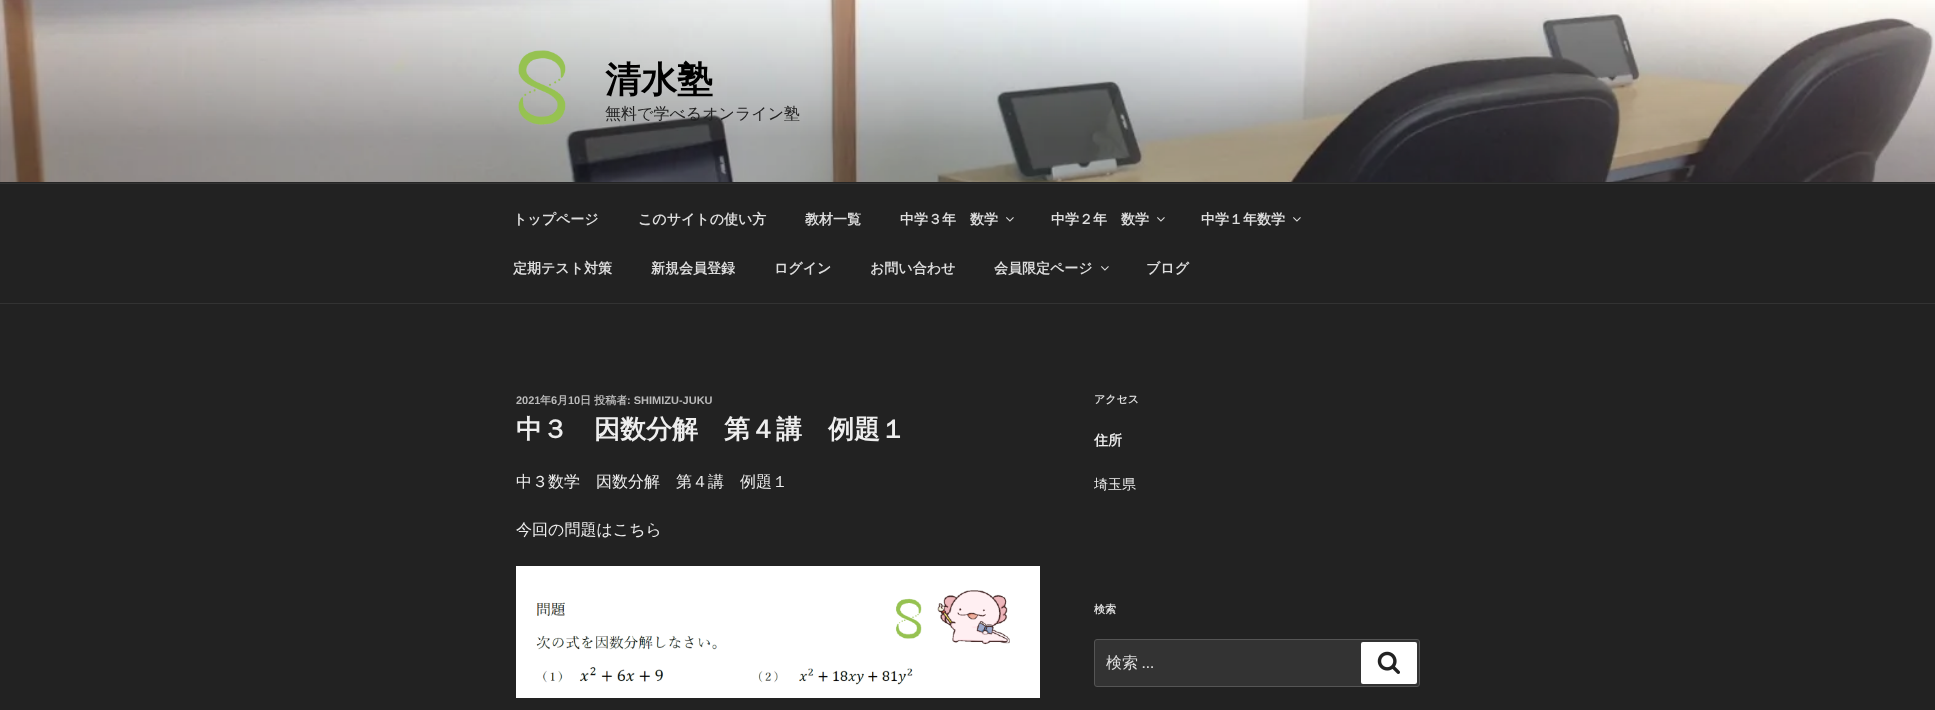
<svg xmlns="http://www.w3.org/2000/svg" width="1935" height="710">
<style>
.a{font:bold 36px WenQuanYi Zen Hei;fill:#000}
.b{font:500 16px WenQuanYi Zen Hei;fill:#222}
.c{font:bold 14px WenQuanYi Zen Hei;fill:#ddd}
.d{font:bold 11px Liberation Sans;fill:#bbb}
.e{font:bold 11px WenQuanYi Zen Hei;fill:#bbb}
.f{font:bold 26px WenQuanYi Zen Hei;fill:#eee}
.g{font:500 16px WenQuanYi Zen Hei;fill:#eee}
.h{font:bold 11px WenQuanYi Zen Hei;fill:#ddd}
.i{font:bold 14px WenQuanYi Zen Hei;fill:#eee}
.j{font:500 14px WenQuanYi Zen Hei;fill:#eee}
.k{font:500 16px WenQuanYi Zen Hei;fill:#ddd}
.l{font:16px Libre Franklin;fill:#ddd}
</style>
<rect width="100%" height="100%" fill="#222"/>
<path fill="#262626" d="M0 182h1935v1H0z"/>
<image href="1.png" x="0" y="0" width="1935" height="182"/>
<image href="2.png" x="518" y="50" width="48" height="75"/>
<path fill="#333" d="M0 183h1935v1H0z"/>
<path fill="#333" d="M0 303h1935v1H0z"/>
<image href="3.png" x="1006" y="217" width="8" height="5"/>
<image href="3.png" x="1157" y="217" width="8" height="5"/>
<image href="3.png" x="1293" y="217" width="8" height="5"/>
<image href="3.png" x="1101" y="266" width="8" height="5"/>
<image href="4.png" x="516" y="566" width="524" height="132"/>
<rect fill="#333" stroke="#555" x="1094.5" y="639.5" width="325" height="47" rx="2.5"/>
<rect fill="#fff" x="1361" y="642" width="56" height="42" rx="2"/>
<image href="5.png" x="1377" y="651" width="23" height="23"/>
<text class="a" x="605" y="92">清水塾</text>
<text class="b" x="605" y="119">無料で学べるオンライン塾</text>
<text class="c" x="513" y="224">トップページ</text>
<text class="c" x="638" y="224">このサイトの使い方</text>
<text class="c" x="805" y="224">教材一覧</text>
<text class="c" x="900" y="224">中学３年　数学</text>
<text class="c" x="1051" y="224">中学２年　数学</text>
<text class="c" x="1201" y="224">中学１年数学</text>
<text class="c" x="513" y="273">定期テスト対策</text>
<text class="c" x="651" y="273">新規会員登録</text>
<text class="c" x="774" y="273">ログイン</text>
<text class="c" x="870" y="273">お問い合わせ</text>
<text class="c" x="994" y="273">会員限定ページ</text>
<text class="c" x="1146" y="273">ブログ</text>
<text class="d" x="516" y="404">2021</text>
<text class="e" x="540" y="404">年</text>
<text class="d" x="551" y="404">6</text>
<text class="e" x="557" y="404">月</text>
<text class="d" x="568" y="404">10</text>
<text class="e" x="580" y="404">日 投稿者</text>
<text class="d" x="627" y="404">: SHIMIZU-JUKU</text>
<text class="f" x="516" y="438">中３　因数分解　第４講　例題１</text>
<text class="g" x="516" y="487">中３数学　因数分解　第４講　例題１</text>
<text class="g" x="516" y="535">今回の問題はこちら</text>
<text class="h" x="1094" y="403">アクセス</text>
<text class="i" x="1094" y="445">住所</text>
<text class="j" x="1094" y="489">埼玉県</text>
<text class="h" x="1094" y="613">検索</text>
<text class="k" x="1106" y="668">検索</text>
<text class="l" x="1142" y="668">…</text>
</svg>
